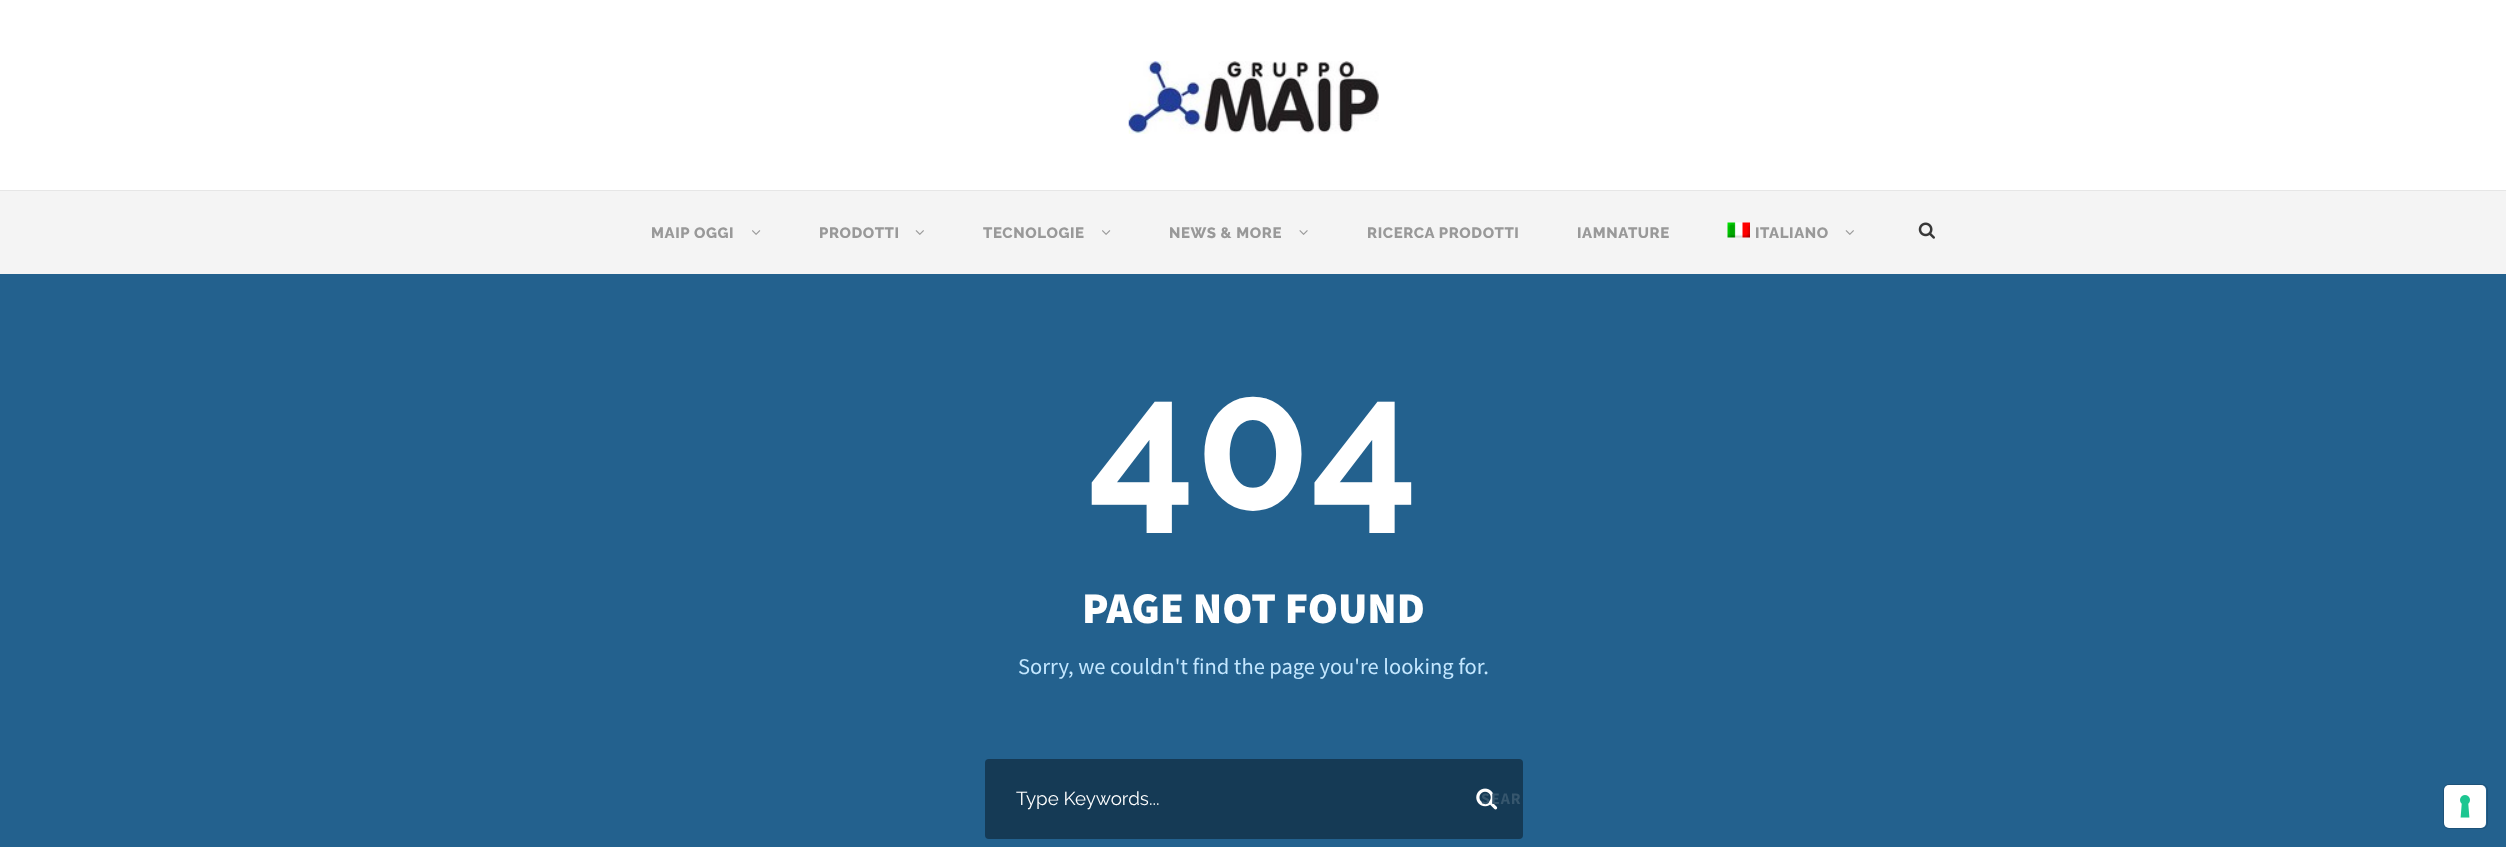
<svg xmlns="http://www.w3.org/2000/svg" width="2506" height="847">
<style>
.a{font:800 15px Raleway;letter-spacing:0.6px;fill:#999}
.b{font:bold 188px Raleway;fill:#fff}
.c{font:900 43.75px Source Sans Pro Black;fill:#fff}
.d{font:22.5px Source Sans Pro;fill:#c3e7ff}
.e{font:18.75px Raleway;fill:#fff}
.f{font:bold 16px Source Sans Pro;letter-spacing:1px;fill:#36566d}
</style>
<rect width="100%" height="100%" fill="#fff"/>
<image href="1.png" x="1128" y="61" width="251" height="73"/>
<path fill="#e6e6e6" d="M0 190h2506v1H0z"/>
<path fill="#f4f4f4" d="M0 191h2506v83H0z"/>
<image href="2.png" x="752" y="230" width="9" height="5"/>
<image href="3.png" x="915" y="230" width="9" height="5"/>
<image href="2.png" x="1102" y="230" width="9" height="5"/>
<image href="4.png" x="1299" y="230" width="9" height="5"/>
<image href="5.png" x="1727" y="222" width="23" height="16"/>
<image href="3.png" x="1845" y="230" width="9" height="5"/>
<image href="6.png" x="1918" y="222" width="17" height="17"/>
<path fill="#23618e" d="M0 274h2506v573H0z"/>
<rect fill="#153a55" x="985" y="759" width="538" height="80" rx="4"/>
<image href="7.png" x="1476" y="788" width="22" height="22"/>
<rect fill="none" stroke="#1e5279" x="2443.5" y="784.5" width="44" height="44" rx="5.5"/>
<rect fill="#fff" x="2444" y="785" width="42" height="43" rx="5"/>
<image href="8.png" x="2460" y="795" width="10" height="23"/>
<text class="a" x="651" y="238">MAIP OGGI</text>
<text class="a" x="819" y="238">PRODOTTI</text>
<text class="a" x="983" y="238">TECNOLOGIE</text>
<text class="a" x="1169" y="238">NEWS &amp; MORE</text>
<text class="a" x="1367" y="238">RICERCA PRODOTTI</text>
<text class="a" x="1577" y="238">IAMNATURE</text>
<text class="a" x="1755" y="238">ITALIANO</text>
<text class="b" x="1088" y="509">404</text>
<text class="c" x="1082" y="623">PAGE NOT FOUND</text>
<text class="d" x="1018" y="674">Sorry, we couldn't find the page you're looking for.</text>
<text class="e" x="1016" y="805">Type Keywords...</text>
<text class="f" x="1481" y="804">SEAR</text>
</svg>
